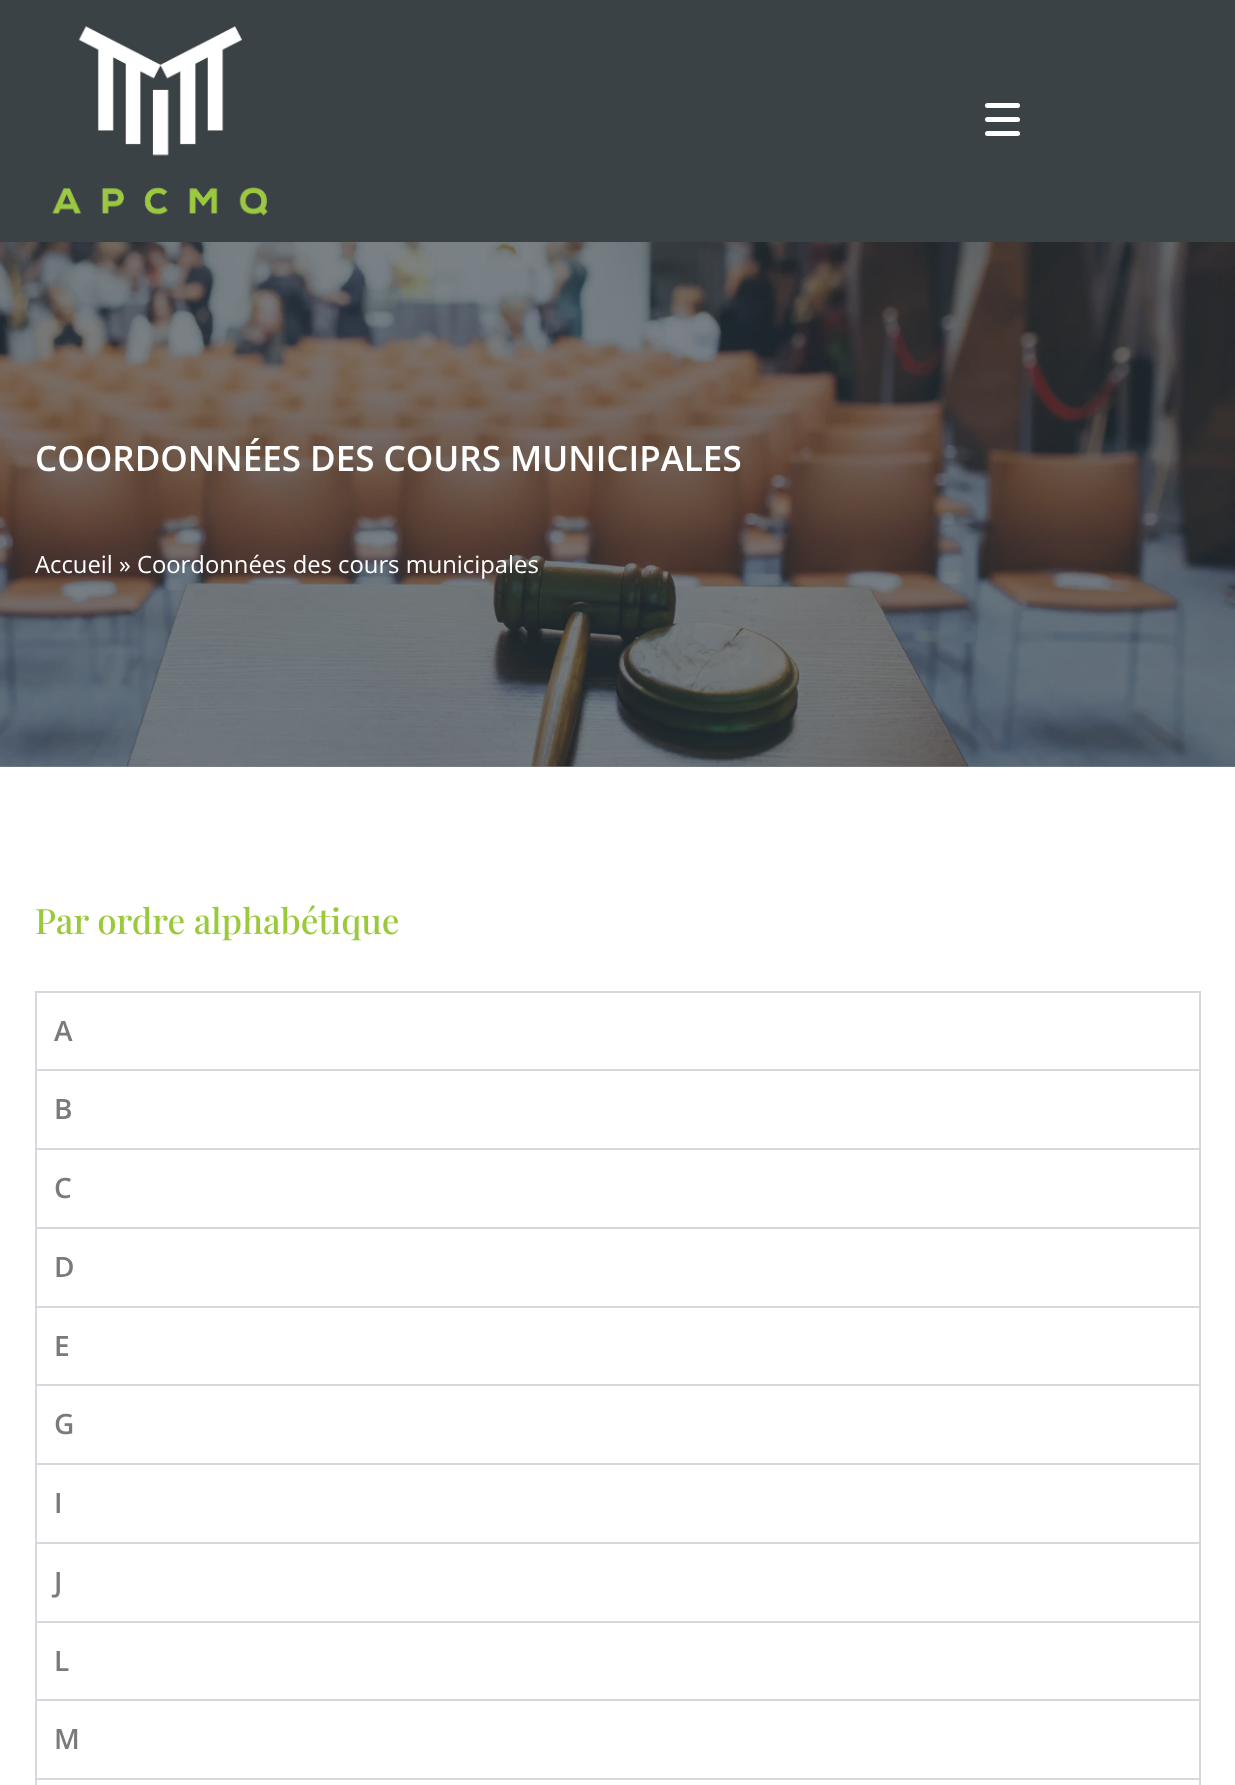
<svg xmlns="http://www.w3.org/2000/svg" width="1235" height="1785">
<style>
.a{font:600 35px Open Sans;fill:#fff}
.b{font:23.8px Open Sans;fill:#fff}
.c{font:500 35px Playfair Display;fill:#9aca3c}
.d{font:600 28px Open Sans;fill:#7a7a7a}
</style>
<rect width="100%" height="100%" fill="#fff"/>
<path fill="#80858a" d="M0 766h1235v1H0z"/>
<path fill="#3a4246" d="M0 0h1235v242H0z"/>
<image href="1.png" x="52" y="26" width="216" height="190"/>
<rect fill="#fff" x="985" y="117" width="35" height="5" rx="2.5"/>
<rect fill="#fff" x="985" y="103" width="35" height="5" rx="2.5"/>
<rect fill="#fff" x="985" y="131" width="35" height="5" rx="2.5"/>
<image href="2.png" x="0" y="242" width="1235" height="525"/>
<path fill="#d5d8dc" d="M35 991h1166v2H35z"/>
<path fill="#d5d8dc" d="M1199 991h2v78H1199z"/>
<path fill="#d5d8dc" d="M35 991h2v78H35z"/>
<path fill="#d5d8dc" d="M35 1069h1166v2H35z"/>
<path fill="#d5d8dc" d="M1199 1069h2v79H1199z"/>
<path fill="#d5d8dc" d="M35 1069h2v79H35z"/>
<path fill="#d5d8dc" d="M35 1148h1166v2H35z"/>
<path fill="#d5d8dc" d="M1199 1148h2v79H1199z"/>
<path fill="#d5d8dc" d="M35 1148h2v79H35z"/>
<path fill="#d5d8dc" d="M35 1227h1166v2H35z"/>
<path fill="#d5d8dc" d="M1199 1227h2v79H1199z"/>
<path fill="#d5d8dc" d="M35 1227h2v79H35z"/>
<path fill="#d5d8dc" d="M35 1306h1166v2H35z"/>
<path fill="#d5d8dc" d="M1199 1306h2v78H1199z"/>
<path fill="#d5d8dc" d="M35 1306h2v78H35z"/>
<path fill="#d5d8dc" d="M35 1384h1166v2H35z"/>
<path fill="#d5d8dc" d="M1199 1384h2v79H1199z"/>
<path fill="#d5d8dc" d="M35 1384h2v79H35z"/>
<path fill="#d5d8dc" d="M35 1463h1166v2H35z"/>
<path fill="#d5d8dc" d="M1199 1463h2v79H1199z"/>
<path fill="#d5d8dc" d="M35 1463h2v79H35z"/>
<path fill="#d5d8dc" d="M35 1542h1166v2H35z"/>
<path fill="#d5d8dc" d="M1199 1542h2v79H1199z"/>
<path fill="#d5d8dc" d="M35 1542h2v79H35z"/>
<path fill="#d5d8dc" d="M35 1621h1166v2H35z"/>
<path fill="#d5d8dc" d="M1199 1621h2v78H1199z"/>
<path fill="#d5d8dc" d="M35 1621h2v78H35z"/>
<path fill="#d5d8dc" d="M35 1699h1166v2H35z"/>
<path fill="#d5d8dc" d="M1199 1699h2v79H1199z"/>
<path fill="#d5d8dc" d="M35 1699h2v79H35z"/>
<path fill="#d5d8dc" d="M35 1778h1166v2H35z"/>
<path fill="#d5d8dc" d="M1199 1778h2v7H1199z"/>
<path fill="#d5d8dc" d="M35 1778h2v7H35z"/>
<text class="a" x="35" y="471">COORDONNÉES DES COURS MUNICIPALES</text>
<text class="b" x="35" y="573">Accueil » Coordonnées des cours municipales</text>
<text class="c" x="35" y="934">Par ordre alphabétique</text>
<text class="d" x="54" y="1041">A</text>
<text class="d" x="54" y="1119">B</text>
<text class="d" x="54" y="1198">C</text>
<text class="d" x="54" y="1277">D</text>
<text class="d" x="54" y="1356">E</text>
<text class="d" x="54" y="1434">G</text>
<text class="d" x="54" y="1513">I</text>
<text class="d" x="54" y="1592">J</text>
<text class="d" x="54" y="1671">L</text>
<text class="d" x="54" y="1749">M</text>
</svg>
